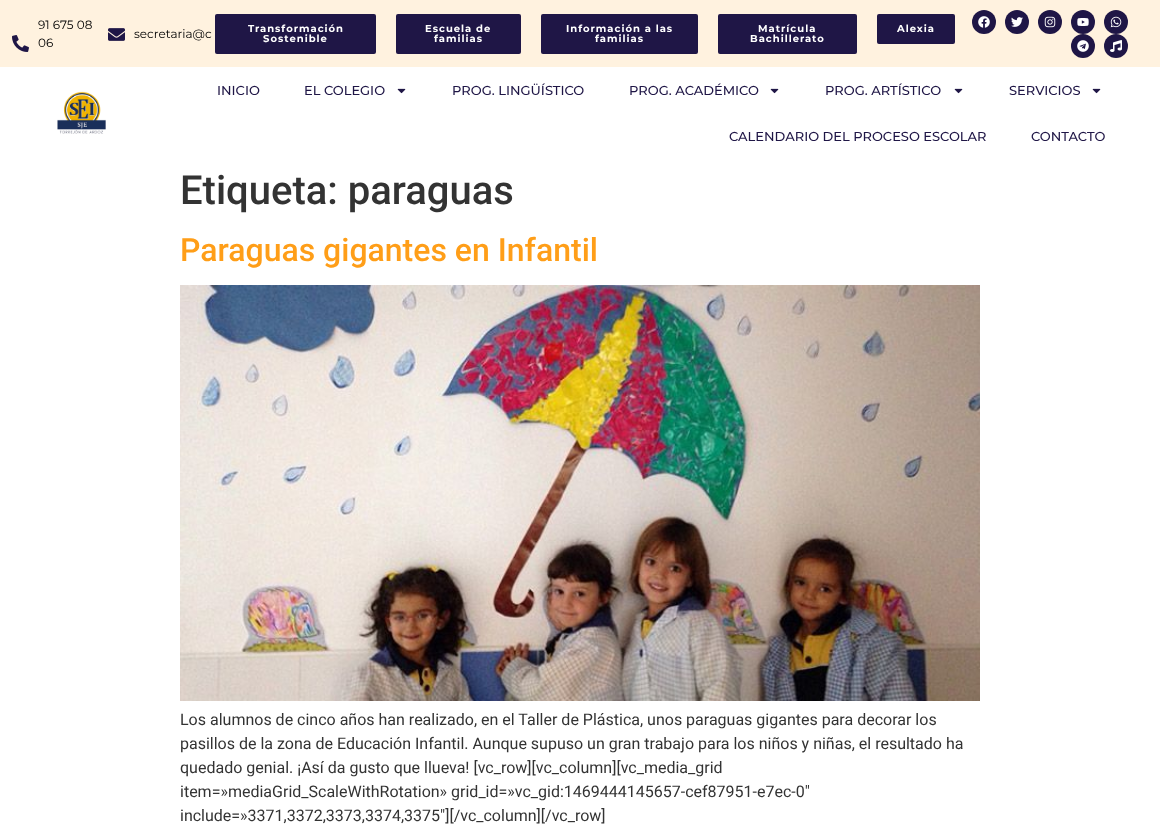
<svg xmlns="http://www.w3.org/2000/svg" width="1160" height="830">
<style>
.a{font:12px Montserrat;fill:#000}
.b{font:bold 10px Montserrat;letter-spacing:1px;fill:#fff}
.c{font:500 13px Montserrat;fill:#1f1646}
.d{font:500 40px Roboto;fill:#333}
.e{font:500 32px Roboto;fill:#ff9e18}
.f{font:16px Roboto;fill:#333}
</style>
<rect width="100%" height="100%" fill="#fff"/>
<path fill="#fff2df" d="M0 0h1160v67H0z"/>
<image href="1.png" x="12" y="35" width="17" height="17"/>
<image href="2.png" x="108" y="28" width="17" height="13"/>
<rect fill="#1f1646" x="215" y="14" width="161" height="40" rx="2"/>
<rect fill="#1f1646" x="396" y="14" width="125" height="40" rx="2"/>
<rect fill="#1f1646" x="541" y="14" width="157" height="40" rx="2"/>
<rect fill="#1f1646" x="718" y="14" width="139" height="40" rx="2"/>
<rect fill="#1f1646" x="877" y="14" width="78" height="30" rx="2"/>
<circle fill="#1f1646" cx="984" cy="22" r="12"/>
<image href="3.png" x="978" y="16" width="12" height="12"/>
<circle fill="#1f1646" cx="1017" cy="22" r="12"/>
<image href="4.png" x="1011" y="17" width="12" height="10"/>
<circle fill="#1f1646" cx="1050" cy="22" r="12"/>
<image href="5.png" x="1044" y="16" width="12" height="12"/>
<circle fill="#1f1646" cx="1083" cy="22" r="12"/>
<image href="6.png" x="1077" y="18" width="12" height="8"/>
<circle fill="#1f1646" cx="1116" cy="22" r="12"/>
<image href="7.png" x="1110" y="16" width="12" height="12"/>
<circle fill="#1f1646" cx="1083" cy="46" r="12"/>
<image href="8.png" x="1077" y="40" width="12" height="12"/>
<circle fill="#1f1646" cx="1116" cy="46" r="12"/>
<image href="9.png" x="1110" y="40" width="12" height="12"/>
<image href="10.png" x="57" y="91" width="49" height="43"/>
<image href="11.png" x="397" y="88" width="9" height="6"/>
<image href="11.png" x="770" y="88" width="9" height="6"/>
<image href="11.png" x="954" y="88" width="9" height="6"/>
<image href="11.png" x="1092" y="88" width="9" height="6"/>
<image href="12.png" x="180" y="285" width="800" height="416"/>
<text class="a" x="38" y="29">91 675 08</text>
<text class="a" x="38" y="47">06</text>
<text class="a" x="134" y="38">secretaria@c</text>
<text class="b" x="248" y="32">Transformación</text>
<text class="b" x="263" y="42">Sostenible</text>
<text class="b" x="425" y="32">Escuela de</text>
<text class="b" x="434" y="42">familias</text>
<text class="b" x="566" y="32">Información a las</text>
<text class="b" x="595" y="42">familias</text>
<text class="b" x="758" y="32">Matrícula</text>
<text class="b" x="750" y="42">Bachillerato</text>
<text class="b" x="897" y="32">Alexia</text>
<text class="c" x="217" y="95">INICIO</text>
<text class="c" x="304" y="95">EL COLEGIO</text>
<text class="c" x="452" y="95">PROG. LINGÜÍSTICO</text>
<text class="c" x="629" y="95">PROG. ACADÉMICO</text>
<text class="c" x="825" y="95">PROG. ARTÍSTICO</text>
<text class="c" x="1009" y="95">SERVICIOS</text>
<text class="c" x="729" y="141">CALENDARIO DEL PROCESO ESCOLAR</text>
<text class="c" x="1031" y="141">CONTACTO</text>
<text class="d" x="180" y="204">Etiqueta: paraguas</text>
<text class="e" x="180" y="261">Paraguas gigantes en Infantil</text>
<text class="f" x="180" y="725">Los alumnos de cinco años han realizado, en el Taller de Plástica, unos paraguas gigantes para decorar los</text>
<text class="f" x="180" y="749">pasillos de la zona de Educación Infantil. Aunque supuso un gran trabajo para los niños y niñas, el resultado ha</text>
<text class="f" x="180" y="773">quedado genial. ¡Así da gusto que llueva! [vc_row][vc_column][vc_media_grid</text>
<text class="f" x="180" y="797">item=»mediaGrid_ScaleWithRotation» grid_id=»vc_gid:1469444145657-cef87951-e7ec-0″</text>
<text class="f" x="180" y="821">include=»3371,3372,3373,3374,3375″][/vc_column][/vc_row]</text>
</svg>
